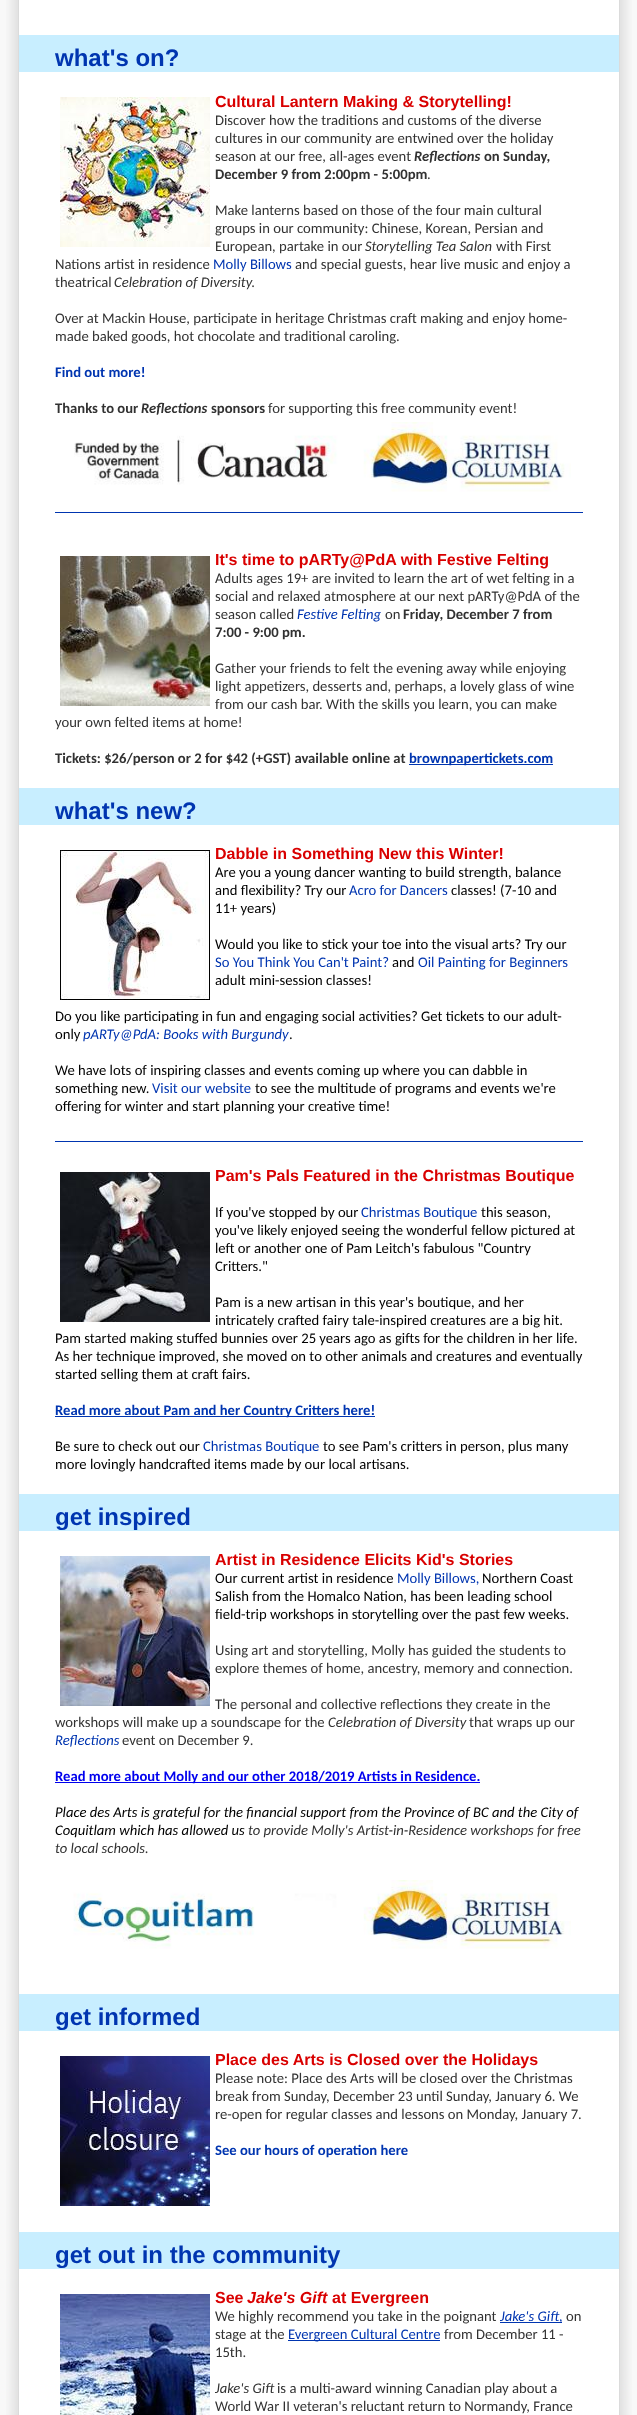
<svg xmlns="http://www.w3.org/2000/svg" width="637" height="2415">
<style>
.a{font:bold 24px Liberation Sans;fill:#0035b0}
.b{font:bold 16px Liberation Sans;fill:#d90000}
.c{font:14.65px Carlito;fill:#323232}
.d{font:italic bold 14.65px Carlito;fill:#323232}
.e{font:bold 14.65px Carlito;fill:#323232}
.f{font:italic 14.65px Carlito;fill:#323232}
.g{font:14.65px Carlito;fill:#0035b0}
.h{font:bold 14.65px Carlito;fill:#0035b0}
.i{font:italic 14.65px Carlito;fill:#0035b0}
.j{font:14.65px Carlito;fill:#000}
.k{font:bold 14.65px Carlito;fill:#00e}
.l{font:italic 14.65px Carlito;fill:#000}
.m{font:italic bold 16px Liberation Sans;fill:#d90000}
</style>
<rect width="100%" height="100%" fill="#f8f8f8"/>
<path fill="#f5f5f5" d="M6 0h1v2415H6z"/>
<path fill="#f4f4f4" d="M7 0h1v2415H7z"/>
<path fill="#f3f3f3" d="M8 0h1v2415H8z"/>
<path fill="#f1f1f1" d="M9 0h1v2415H9z"/>
<path fill="#efefef" d="M10 0h1v2415H10z"/>
<path fill="#ededed" d="M11 0h1v2415H11z"/>
<path fill="#ebebeb" d="M12 0h1v2415H12z"/>
<path fill="#eaeaea" d="M13 0h1v2415H13z"/>
<path fill="#e8e8e8" d="M14 0h1v2415H14z"/>
<path fill="#e6e6e6" d="M15 0h1v2415H15z"/>
<path fill="#e4e4e4" d="M16 0h1v2415H16z"/>
<path fill="#e3e3e3" d="M17 0h1v2415H17z"/>
<path fill="#dbdbdb" d="M18 0h602v2415H18z"/>
<path fill="#fff" d="M19 0h600v2415H19z"/>
<path fill="#c8eeff" d="M19 35h600v37H19z"/>
<image href="1.png" x="60" y="97" width="150" height="150"/>
<image href="2.png" x="74" y="422" width="497" height="70"/>
<path fill="#0035b0" d="M55 512h528v1H55z"/>
<image href="3.png" x="60" y="556" width="150" height="150"/>
<path fill="#0035b0" d="M409 764h144v1H409z"/>
<path fill="#c8eeff" d="M19 788h600v37H19z"/>
<image href="4.png" x="60" y="850" width="150" height="150"/>
<path fill="#0035b0" d="M55 1141h528v1H55z"/>
<image href="5.png" x="60" y="1172" width="150" height="150"/>
<path fill="#0035b0" d="M55 1416h320v1H55z"/>
<path fill="#c8eeff" d="M19 1494h600v37H19z"/>
<image href="6.png" x="60" y="1556" width="150" height="150"/>
<path fill="#00e" d="M55 1782h425v1H55z"/>
<image href="7.png" x="73" y="1880" width="498" height="69"/>
<path fill="#c8eeff" d="M19 1994h600v37H19z"/>
<image href="8.png" x="60" y="2056" width="150" height="150"/>
<path fill="#c8eeff" d="M19 2232h600v37H19z"/>
<image href="9.png" x="60" y="2294" width="150" height="121"/>
<path fill="#0035b0" d="M500 2322h62v1H500z"/>
<path fill="#0035b0" d="M288 2340h152v1H288z"/>
<path fill="#e3e3e3" d="M620 0h1v2415H620z"/>
<path fill="#e4e4e4" d="M621 0h1v2415H621z"/>
<path fill="#e6e6e6" d="M622 0h1v2415H622z"/>
<path fill="#e8e8e8" d="M623 0h1v2415H623z"/>
<path fill="#eaeaea" d="M624 0h1v2415H624z"/>
<path fill="#ebebeb" d="M625 0h1v2415H625z"/>
<path fill="#ededed" d="M626 0h1v2415H626z"/>
<path fill="#efefef" d="M627 0h1v2415H627z"/>
<path fill="#f1f1f1" d="M628 0h1v2415H628z"/>
<path fill="#f3f3f3" d="M629 0h1v2415H629z"/>
<path fill="#f4f4f4" d="M630 0h1v2415H630z"/>
<path fill="#f5f5f5" d="M631 0h1v2415H631z"/>
<text class="a" x="55" y="66">what's on?</text>
<text class="b" x="215" y="107">Cultural Lantern Making &amp; Storytelling!</text>
<text class="c" x="215" y="125">Discover how the traditions and customs of the diverse</text>
<text class="c" x="215" y="143">cultures in our community are entwined over the holiday</text>
<text class="c" x="215" y="161">season at our free, all-ages event</text>
<text class="d" x="414" y="161">Reflections</text>
<text class="e" x="484" y="161">on Sunday,</text>
<text class="e" x="215" y="179">December 9 from 2:00pm - 5:00pm</text>
<text class="c" x="427" y="179">.</text>
<text class="c" x="215" y="215">Make lanterns based on those of the four main cultural</text>
<text class="c" x="215" y="233">groups in our community: Chinese, Korean, Persian and</text>
<text class="c" x="215" y="251">European, partake in our</text>
<text class="f" x="365" y="251">Storytelling Tea Salon</text>
<text class="c" x="496" y="251">with First</text>
<text class="c" x="55" y="269">Nations artist in residence</text>
<text class="g" x="213" y="269">Molly Billows</text>
<text class="c" x="295" y="269">and special guests, hear live music and enjoy a</text>
<text class="c" x="55" y="287">theatrical</text>
<text class="f" x="114" y="287">Celebration of Diversity.</text>
<text class="c" x="55" y="323">Over at Mackin House, participate in heritage Christmas craft making and enjoy home-</text>
<text class="c" x="55" y="341">made baked goods, hot chocolate and traditional caroling.</text>
<text class="h" x="55" y="377">Find out more!</text>
<text class="e" x="55" y="413">Thanks to our</text>
<text class="d" x="141" y="413">Reflections</text>
<text class="e" x="211" y="413">sponsors</text>
<text class="c" x="268" y="413">for supporting this free community event!</text>
<text class="b" x="215" y="565">It's time to pARTy@PdA with Festive Felting</text>
<text class="c" x="215" y="583">Adults ages 19+ are invited to learn the art of wet felting in a</text>
<text class="c" x="215" y="601">social and relaxed atmosphere at our next pARTy@PdA of the</text>
<text class="c" x="215" y="619">season called</text>
<text class="i" x="297" y="619">Festive Felting</text>
<text class="c" x="385" y="619">on</text>
<text class="e" x="403" y="619">Friday, December 7 from</text>
<text class="e" x="215" y="637">7:00 - 9:00 pm.</text>
<text class="c" x="215" y="673">Gather your friends to felt the evening away while enjoying</text>
<text class="c" x="215" y="691">light appetizers, desserts and, perhaps, a lovely glass of wine</text>
<text class="c" x="215" y="709">from our cash bar. With the skills you learn, you can make</text>
<text class="c" x="55" y="727">your own felted items at home!</text>
<text class="e" x="55" y="763">Tickets: $26/person or 2 for $42 (+GST) available online at</text>
<text class="h" x="409" y="763">brownpapertickets.com</text>
<text class="a" x="55" y="819">what's new?</text>
<text class="b" x="215" y="859">Dabble in Something New this Winter!</text>
<text class="j" x="215" y="877">Are you a young dancer wanting to build strength, balance</text>
<text class="j" x="215" y="895">and flexibility? Try our</text>
<text class="g" x="349" y="895">Acro for Dancers</text>
<text class="j" x="451" y="895">classes! (7-10 and</text>
<text class="j" x="215" y="913">11+ years)</text>
<text class="j" x="215" y="949">Would you like to stick your toe into the visual arts? Try our</text>
<text class="g" x="215" y="967">So You Think You Can't Paint?</text>
<text class="j" x="392" y="967">and</text>
<text class="g" x="418" y="967">Oil Painting for Beginners</text>
<text class="j" x="215" y="985">adult mini-session classes!</text>
<text class="j" x="55" y="1021">Do you like participating in fun and engaging social activities? Get tickets to our adult-</text>
<text class="j" x="55" y="1039">only</text>
<text class="i" x="83" y="1039">pARTy@PdA: Books with Burgundy</text>
<text class="j" x="289" y="1039">.</text>
<text class="j" x="55" y="1075">We have lots of inspiring classes and events coming up where you can dabble in</text>
<text class="j" x="55" y="1093">something new.</text>
<text class="g" x="152" y="1093">Visit our website</text>
<text class="j" x="255" y="1093">to see the multitude of programs and events we're</text>
<text class="j" x="55" y="1111">offering for winter and start planning your creative time!</text>
<text class="b" x="215" y="1181">Pam's Pals Featured in the Christmas Boutique</text>
<text class="j" x="215" y="1217">If you've stopped by our</text>
<text class="g" x="361" y="1217">Christmas Boutique</text>
<text class="j" x="481" y="1217">this season,</text>
<text class="j" x="215" y="1235">you've likely enjoyed seeing the wonderful fellow pictured at</text>
<text class="j" x="215" y="1253">left or another one of Pam Leitch's fabulous "Country</text>
<text class="j" x="215" y="1271">Critters."</text>
<text class="j" x="215" y="1307">Pam is a new artisan in this year's boutique, and her</text>
<text class="j" x="215" y="1325">intricately crafted fairy tale-inspired creatures are a big hit.</text>
<text class="j" x="55" y="1343">Pam started making stuffed bunnies over 25 years ago as gifts for the children in her life.</text>
<text class="j" x="55" y="1361">As her technique improved, she moved on to other animals and creatures and eventually</text>
<text class="j" x="55" y="1379">started selling them at craft fairs.</text>
<text class="h" x="55" y="1415">Read more about Pam and her Country Critters here!</text>
<text class="j" x="55" y="1451">Be sure to check out our</text>
<text class="g" x="203" y="1451">Christmas Boutique</text>
<text class="j" x="323" y="1451">to see Pam's critters in person, plus many</text>
<text class="j" x="55" y="1469">more lovingly handcrafted items made by our local artisans.</text>
<text class="a" x="55" y="1525">get inspired</text>
<text class="b" x="215" y="1565">Artist in Residence Elicits Kid's Stories</text>
<text class="j" x="215" y="1583">Our current artist in residence</text>
<text class="g" x="397" y="1583">Molly Billows,</text>
<text class="j" x="482" y="1583">Northern Coast</text>
<text class="j" x="215" y="1601">Salish from the Homalco Nation, has been leading school</text>
<text class="j" x="215" y="1619">field-trip workshops in storytelling over the past few weeks.</text>
<text class="c" x="215" y="1655">Using art and storytelling, Molly has guided the students to</text>
<text class="c" x="215" y="1673">explore themes of home, ancestry, memory and connection.</text>
<text class="c" x="215" y="1709">The personal and collective reflections they create in the</text>
<text class="c" x="55" y="1727">workshops will make up a soundscape for the</text>
<text class="f" x="328" y="1727">Celebration of Diversity</text>
<text class="c" x="469" y="1727">that wraps up our</text>
<text class="i" x="55" y="1745">Reflections</text>
<text class="c" x="122" y="1745">event on December 9.</text>
<text class="k" x="55" y="1781">Read more about Molly and our other 2018/2019 Artists in Residence.</text>
<text class="l" x="55" y="1817">Place des Arts is grateful for the financial support from the Province of BC and the City of</text>
<text class="l" x="55" y="1835">Coquitlam which has allowed us</text>
<text class="f" x="248" y="1835">to provide Molly's Artist-in-Residence workshops for free</text>
<text class="f" x="55" y="1853">to local schools.</text>
<text class="a" x="55" y="2025">get informed</text>
<text class="b" x="215" y="2065">Place des Arts is Closed over the Holidays</text>
<text class="c" x="215" y="2083">Please note: Place des Arts will be closed over the Christmas</text>
<text class="c" x="215" y="2101">break from Sunday, December 23 until Sunday, January 6. We</text>
<text class="c" x="215" y="2119">re-open for regular classes and lessons on Monday, January 7.</text>
<text class="h" x="215" y="2155">See our hours of operation here</text>
<text class="a" x="55" y="2263">get out in the community</text>
<text class="b" x="215" y="2303">See</text>
<text class="m" x="247" y="2303">Jake's Gift</text>
<text class="b" x="332" y="2303">at Evergreen</text>
<text class="c" x="215" y="2321">We highly recommend you take in the poignant</text>
<text class="i" x="500" y="2321">Jake's Gift,</text>
<text class="c" x="566" y="2321">on</text>
<text class="c" x="215" y="2339">stage at the</text>
<text class="g" x="288" y="2339">Evergreen Cultural Centre</text>
<text class="c" x="444" y="2339">from December 11 -</text>
<text class="c" x="215" y="2357">15th.</text>
<text class="f" x="215" y="2393">Jake's Gift</text>
<text class="c" x="277" y="2393">is a multi-award winning Canadian play about a</text>
<text class="c" x="215" y="2411">World War II veteran's reluctant return to Normandy, France</text>
</svg>
